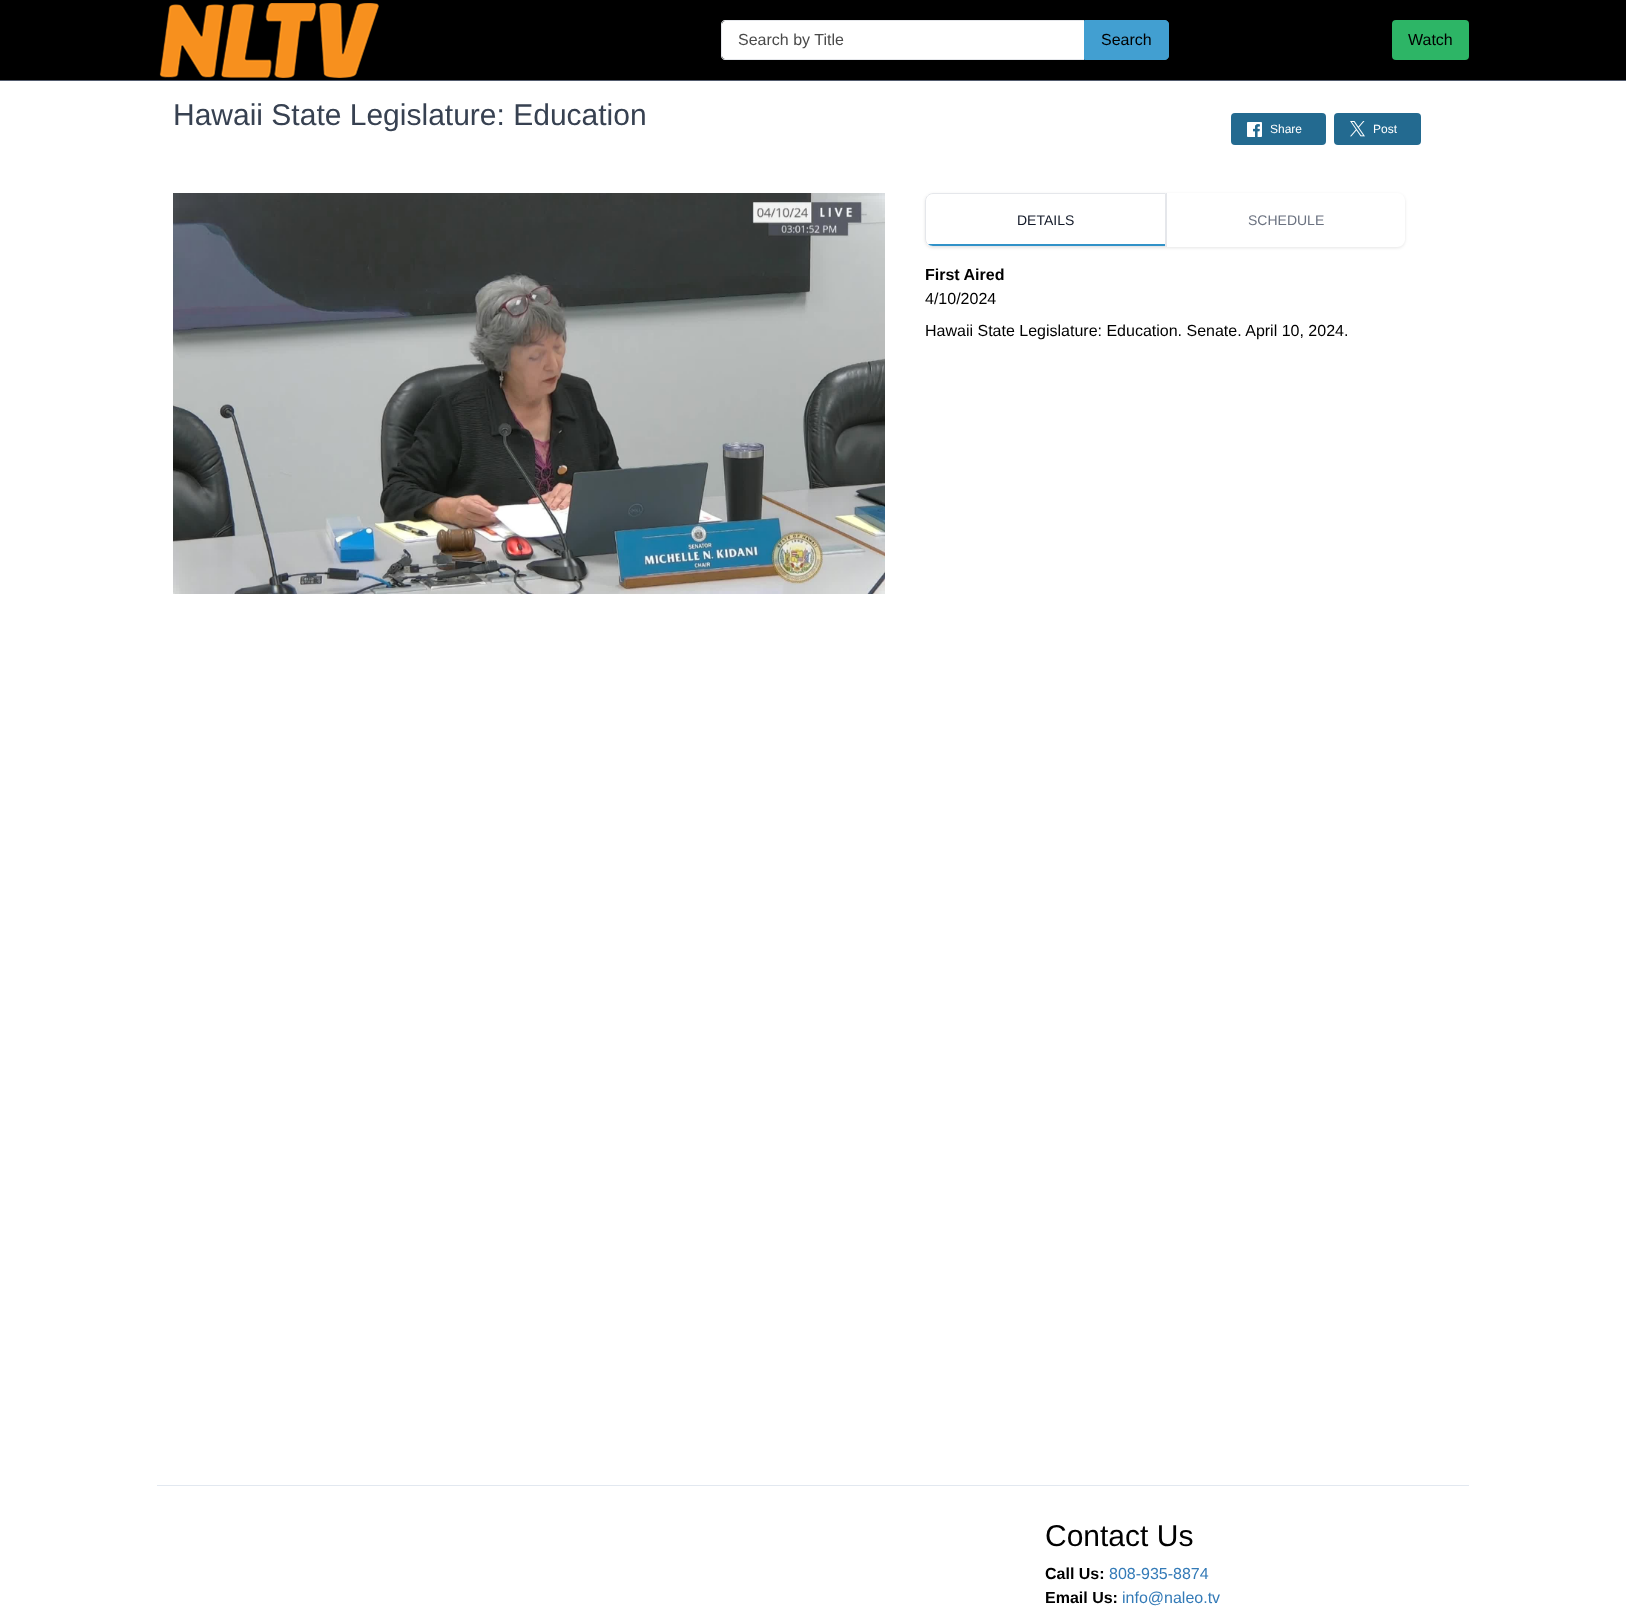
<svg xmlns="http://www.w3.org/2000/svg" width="1626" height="1606">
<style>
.a{font:16px Liberation Sans;fill:#4a4a4a}
.b{font:16px Liberation Sans;fill:#000}
.c{font:30px Liberation Sans;fill:#374151}
.d{font:12px Liberation Sans;fill:#fff}
.e{font:14px Liberation Sans;fill:#111827}
.f{font:14px Liberation Sans;fill:#6b7280}
.g{font:bold 16px Liberation Sans;fill:#000}
.h{font:30px Liberation Sans;fill:#000}
.i{font:16px Liberation Sans;fill:#337ab7}
</style>
<defs>
<clipPath id="clip1"><path d="M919 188h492v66h-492zm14 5h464c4.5 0 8 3.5 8 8v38c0 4.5-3.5 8-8 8h-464c-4.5 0-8-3.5-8-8v-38c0-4.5 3.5-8 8-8z" clip-rule="evenodd"/></clipPath>
<clipPath id="clip2"><path d="M933 194h232v52h-232c-4 0-7-3-7-7v-38c0-4 3-7 7-7z"/></clipPath>
</defs>
<rect width="100%" height="100%" fill="#fff"/>
<path fill="#000" d="M0 0h1626v80H0z"/>
<path fill="#545c6e" d="M0 80h1626v1H0z"/>
<image href="1.png" x="159" y="3" width="220" height="75"/>
<path fill="#fff" d="M725 21h359v38h-359c-1.5 0-3-1.5-3-3v-32c0-1.5 1.5-3 3-3z"/>
<path fill="#e5e7eb" fill-rule="evenodd" d="M725 20h359v40h-359c-2 0-4-2-4-4v-32c0-2 2-4 4-4zm0 1h359v38h-359c-2 0-3-1-3-3v-32c0-2 1-3 3-3z"/>
<path fill="#429fd1" stroke="#429fd1" d="M1084.5 20.5h80.5c2 0 3.5 1.5 3.5 3.5v32c0 2-1.5 3.5-3.5 3.5h-80.5z"/>
<rect fill="#2db566" x="1392" y="20" width="77" height="40" rx="4"/>
<rect fill="#236a90" x="1231" y="113" width="95" height="32" rx="4"/>
<image href="2.png" x="1247" y="122" width="15" height="15"/>
<rect fill="#236a90" x="1334" y="113" width="87" height="32" rx="4"/>
<image href="3.png" x="1350" y="121" width="15" height="16"/>
<image href="4.png" x="173" y="193" width="712" height="401"/>
<g clip-path="url(#clip1)">
<rect fill="#0000001a" filter="blur(1.5px)" x="925" y="194" width="480" height="54" rx="8"/>
</g>
<path fill="#fff" stroke="#e5e7eb" d="M933 193.5h232.5v53h-232.5c-4 0-7.5-3.5-7.5-7.5v-38c0-4 3.5-7.5 7.5-7.5z"/>
<g clip-path="url(#clip2)">
<path fill="#3192c8" d="M926 244h239v2H926z"/>
</g>
<path fill="#e5e7eb" d="M1166 193h1v54H1166z"/>
<path fill="#e2e8f0" d="M157 1485h1312v1H157z"/>
<text class="a" x="738" y="45">Search by Title</text>
<text class="b" x="1101" y="45">Search</text>
<text class="b" x="1408" y="45">Watch</text>
<text class="c" x="173" y="125">Hawaii State Legislature: Education</text>
<text class="d" x="1270" y="133">Share</text>
<text class="d" x="1373" y="133">Post</text>
<text class="e" x="1017" y="225">DETAILS</text>
<text class="f" x="1248" y="225">SCHEDULE</text>
<text class="g" x="925" y="280">First Aired</text>
<text class="b" x="925" y="304">4/10/2024</text>
<text class="b" x="925" y="336">Hawaii State Legislature: Education. Senate. April 10, 2024.</text>
<text class="h" x="1045" y="1546">Contact Us</text>
<text class="g" x="1045" y="1579">Call Us:</text>
<text class="i" x="1109" y="1579">808-935-8874</text>
<text class="g" x="1045" y="1603">Email Us:</text>
<text class="i" x="1122" y="1603">info@naleo.tv</text>
</svg>
